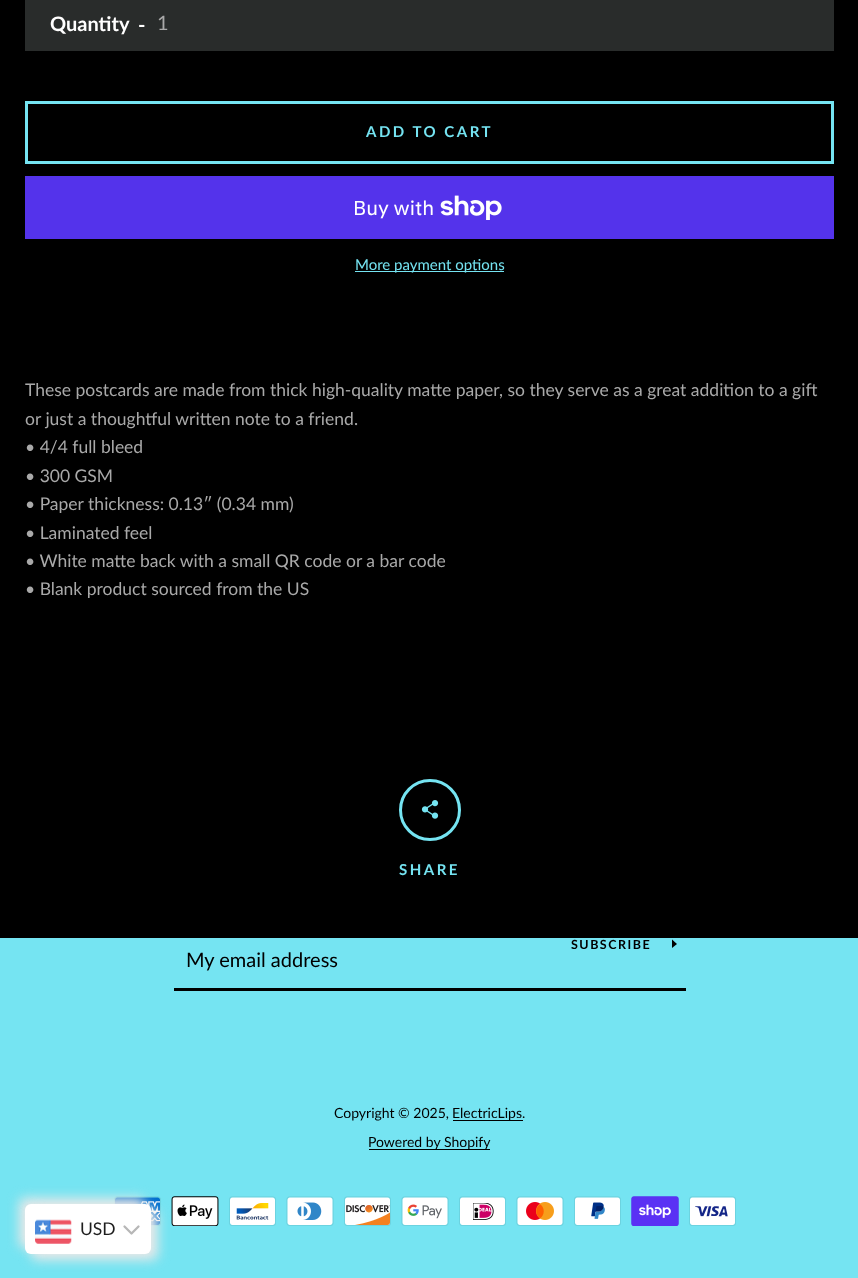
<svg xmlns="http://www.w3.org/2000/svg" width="858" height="1278">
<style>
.a{font:bold 20px Lato;fill:#fff}
.b{font:20px Lato;fill:#a9a9a9}
.c{font:bold 15px Lato;letter-spacing:2.5px;fill:#75e4f2}
.d{font:20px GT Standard;fill:#fff}
.e{font:15px Lato;fill:#75e4f2}
.f{font:17.5px Lato;fill:#a9a9a9}
.g{font:bold 12.5px Lato;letter-spacing:1.5px;fill:#000}
.h{font:20px Lato;fill:#000}
.i{font:14px Lato;fill:#000}
.j{font:17.5px Lato;fill:#1e1e1e}
</style>
<rect width="100%" height="100%" fill="#75e4f2"/>
<path fill="#000" d="M0 0h858v938H0z"/>
<path fill="#292c2b" d="M25 0h809v51H25z"/>
<path fill="none" stroke="#75e4f2" stroke-width="3" d="M26.5 102.5h806v60H26.5z"/>
<path fill="#5433eb" d="M25 176h809v63H25z"/>
<image href="1.png" x="440" y="195" width="62" height="25"/>
<path fill="#75e4f2" d="M355 271h149v1H355z"/>
<circle fill="none" stroke="#75e4f2" stroke-width="3" cx="430" cy="810" r="29.5"/>
<image href="2.png" x="421" y="800" width="18" height="19"/>
<path fill="#000" d="M174 988h512v3H174z"/>
<path fill="#000" d="M677 944l-5 4v-8.5z"/>
<path fill="#000" d="M453 1120h70v1H453z"/>
<path fill="#000" d="M369 1149h121v1H369z"/>
<image href="3.png" x="114" y="1196" width="47" height="30"/>
<image href="4.png" x="171" y="1196" width="48" height="30"/>
<image href="5.png" x="229" y="1196" width="47" height="30"/>
<image href="6.png" x="286" y="1196" width="48" height="30"/>
<image href="7.png" x="344" y="1196" width="47" height="30"/>
<image href="8.png" x="401" y="1196" width="48" height="30"/>
<image href="9.png" x="459" y="1196" width="47" height="30"/>
<image href="10.png" x="516" y="1196" width="48" height="30"/>
<image href="11.png" x="574" y="1196" width="47" height="30"/>
<image href="12.png" x="631" y="1196" width="48" height="30"/>
<image href="13.png" x="689" y="1196" width="47" height="30"/>
<rect fill="#e8e8e8" filter="blur(6px)" x="19" y="1198" width="126" height="50" rx="6"/>
<rect fill="#e8e8e8" filter="blur(6px)" x="31" y="1210" width="127" height="50" rx="6"/>
<rect fill="#fff" x="25" y="1204" width="126" height="50" rx="6"/>
<image href="14.png" x="35" y="1219" width="37" height="25"/>
<path fill="none" stroke="#b7b7b7" stroke-width="2.3" stroke-linecap="round" stroke-linejoin="round" d="M124.5 1226.5l7 7l7-7"/>
<text class="a" x="50" y="31">Quantity</text>
<text class="a" x="138" y="32">-</text>
<text class="b" x="157" y="30">1</text>
<text class="c" x="366" y="137">ADD TO CART</text>
<text class="d" x="353" y="215">Buy with</text>
<text class="e" x="355" y="270">More payment options</text>
<text class="f" x="25" y="396">These postcards are made from thick high-quality matte paper, so they serve as a great addition to a gift</text>
<text class="f" x="25" y="425">or just a thoughtful written note to a friend.</text>
<text class="f" x="25" y="453">• 4/4 full bleed</text>
<text class="f" x="25" y="482">• 300 GSM</text>
<text class="f" x="25" y="510">• Paper thickness: 0.13″ (0.34 mm)</text>
<text class="f" x="25" y="539">• Laminated feel</text>
<text class="f" x="25" y="567">• White matte back with a small QR code or a bar code</text>
<text class="f" x="25" y="595">• Blank product sourced from the US</text>
<text class="c" x="399" y="875">SHARE</text>
<text class="g" x="571" y="949">SUBSCRIBE</text>
<text class="h" x="186" y="967">My email address</text>
<text class="i" x="334" y="1118">Copyright © 2025,</text>
<text class="i" x="452" y="1118">ElectricLips.</text>
<text class="i" x="368" y="1147">Powered by Shopify</text>
<text class="j" x="80" y="1235">USD</text>
</svg>
